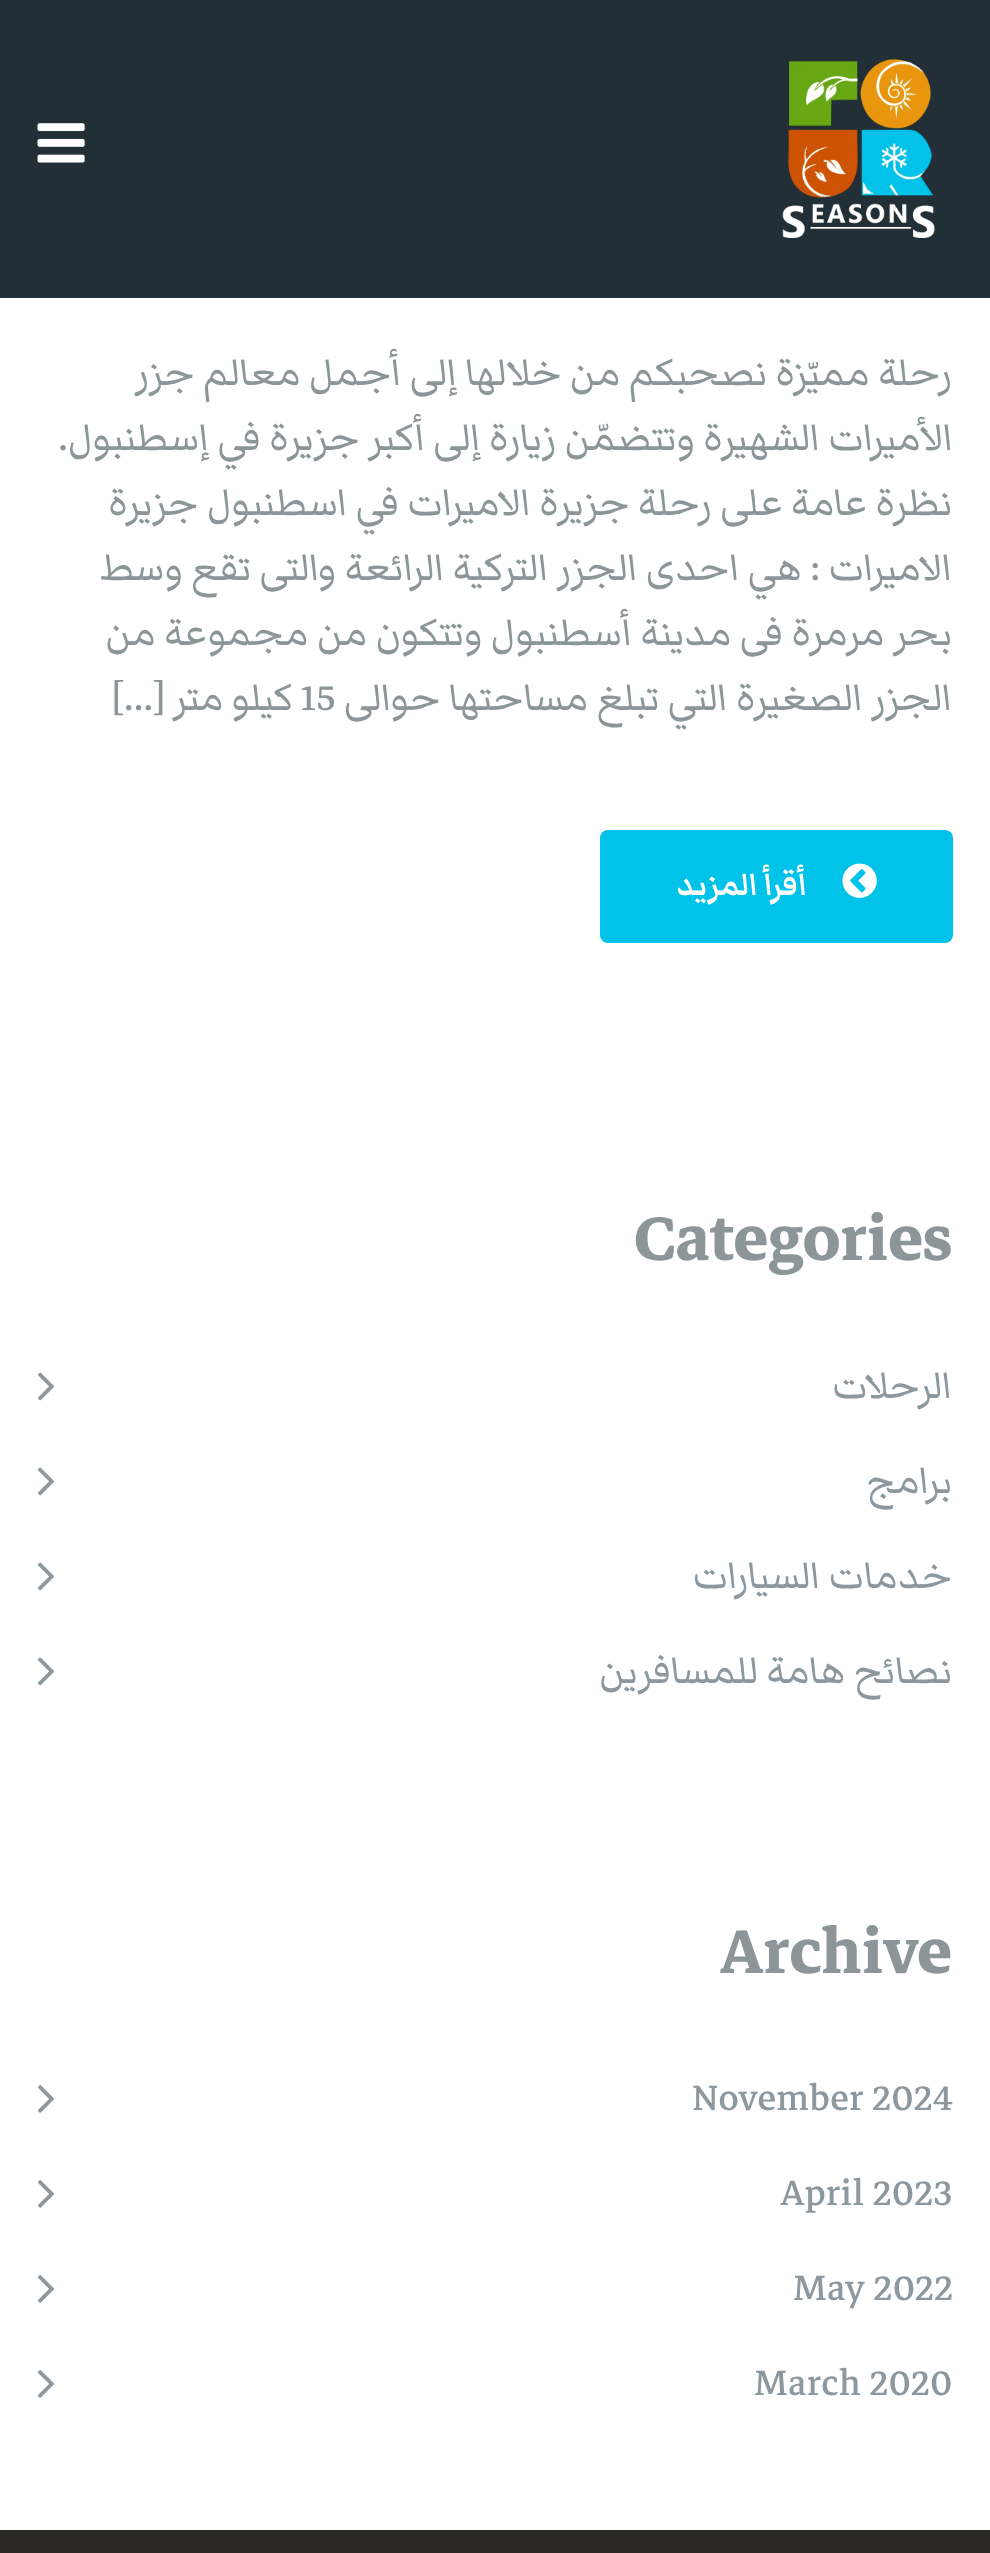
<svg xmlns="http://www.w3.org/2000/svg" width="990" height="2553">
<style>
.a{font:50px Markazi Text;direction:rtl;fill:#8c9597}
.b{font:50px Markazi Text;fill:#8c9597}
.c{font:bold 40px Markazi Text;direction:rtl;fill:#fff}
.d{font:bold 87.5px Markazi Text;fill:#8c9597}
.e{font:50px Markazi Text;direction:rtl;fill:#8c979e}
.f{font:50px Markazi Text;fill:#8c979e}
</style>
<rect width="100%" height="100%" fill="#fff"/>
<path fill="#222f36" d="M0 0h990v298H0z"/>
<image href="1.png" x="782" y="59" width="153" height="179"/>
<image href="2.png" x="37" y="123" width="48" height="40"/>
<rect fill="#01c2e9" x="600" y="830" width="353" height="113" rx="8"/>
<image href="3.png" x="842" y="863" width="35" height="35"/>
<image href="4.png" x="37" y="1372" width="17" height="29"/>
<image href="4.png" x="37" y="1467" width="17" height="29"/>
<image href="4.png" x="37" y="1562" width="17" height="29"/>
<image href="4.png" x="37" y="1657" width="17" height="29"/>
<image href="5.png" x="37" y="2085" width="17" height="28"/>
<image href="5.png" x="37" y="2180" width="17" height="28"/>
<image href="5.png" x="37" y="2275" width="17" height="28"/>
<image href="5.png" x="37" y="2370" width="17" height="28"/>
<path fill="#292825" d="M0 2530h990v23H0z"/>
<text class="a" x="952" y="385">رحلة مميّزة نصحبكم من خلالها إلى أجمل معالم جزر</text>
<text class="a" x="953" y="450">الأميرات الشهيرة وتتضمّن زيارة إلى أكبر جزيرة في إسطنبول.</text>
<text class="a" x="952" y="515">نظرة عامة على رحلة جزيرة الاميرات في اسطنبول جزيرة</text>
<text class="a" x="952" y="580">الاميرات : هي احدى الجزر التركية الرائعة والتى تقع وسط</text>
<text class="a" x="952" y="645">بحر مرمرة فى مدينة أسطنبول وتتكون من مجموعة من</text>
<text class="a" x="952" y="710">الجزر الصغيرة التي تبلغ مساحتها حوالى</text>
<text class="b" x="300" y="710">15</text>
<text class="a" x="293" y="710" word-spacing="-1">كيلو متر […]</text>
<text class="c" x="807" y="895">أقرأ المزيد</text>
<text class="d" x="634" y="1260">Categories</text>
<text class="e" x="952" y="1398">الرحلات</text>
<text class="e" x="952" y="1493">برامج</text>
<text class="e" x="952" y="1588">خدمات السيارات</text>
<text class="e" x="952" y="1683">نصائح هامة للمسافرين</text>
<text class="d" x="720" y="1973">Archive</text>
<text class="f" x="692" y="2110">November 2024</text>
<text class="f" x="780" y="2205">April 2023</text>
<text class="f" x="793" y="2300">May 2022</text>
<text class="f" x="754" y="2395">March 2020</text>
</svg>
